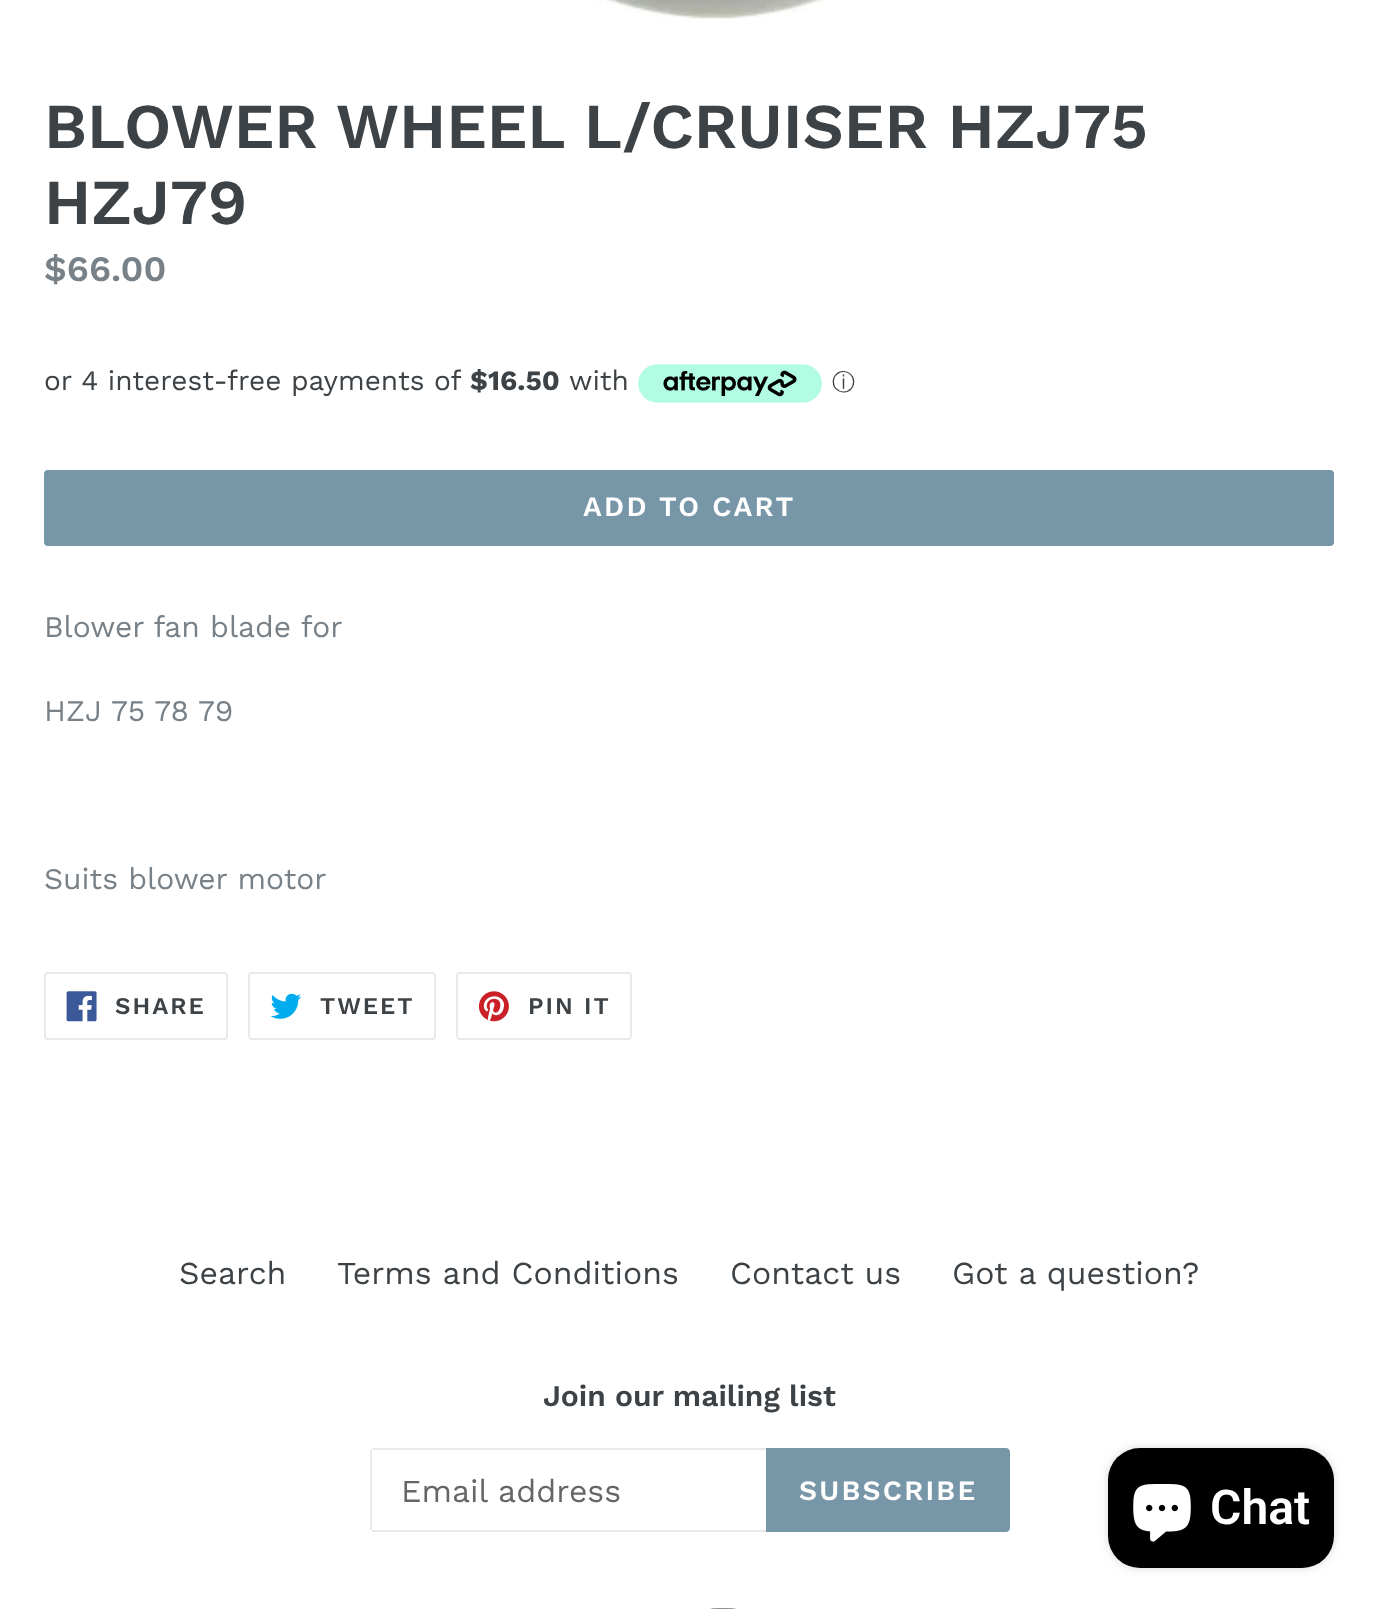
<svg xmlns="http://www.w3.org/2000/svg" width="1377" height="1609">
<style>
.a{font:600 64px Work Sans;fill:#3d4246}
.b{font:600 36px Work Sans;fill:#788188}
.c{font:28px Work Sans;fill:#3d4246}
.d{font:bold 28px Work Sans;fill:#3d4246}
.e{font:500 23px WenQuanYi Zen Hei;fill:#3d4246}
.f{font:600 28px Work Sans;letter-spacing:2.25px;fill:#fff}
.g{font:30px Work Sans;fill:#788188}
.h{font:600 24px Work Sans;letter-spacing:2px;fill:#3d4246}
.i{font:32px Work Sans;fill:#3d4246}
.j{font:600 30px Work Sans;fill:#3d4246}
.k{font:32px Work Sans;fill:#666}
.l{font:600 48px Roboto;fill:#fff}
</style>
<rect width="100%" height="100%" fill="#fff"/>
<image href="1.png" x="598" y="0" width="225" height="19"/>
<image href="2.png" x="638" y="364" width="184" height="39"/>
<rect fill="#7796a8" x="44" y="470" width="1290" height="76" rx="4"/>
<rect fill="none" stroke="#e8e9eb" stroke-width="2" x="45" y="973" width="182" height="66" rx="3"/>
<image href="3.png" x="66" y="991" width="31" height="31"/>
<rect fill="none" stroke="#e8e9eb" stroke-width="2" x="249" y="973" width="186" height="66" rx="3"/>
<image href="4.png" x="270" y="993" width="32" height="26"/>
<rect fill="none" stroke="#e8e9eb" stroke-width="2" x="457" y="973" width="174" height="66" rx="3"/>
<image href="5.png" x="478" y="991" width="31" height="31"/>
<path fill="#e8e9eb" d="M372 1448h394v2H372z"/>
<path fill="#e8e9eb" d="M372 1530h394v2H372z"/>
<path fill="#e8e9eb" d="M370 1450h2v80H370z"/>
<path fill="#7796a8" d="M766 1448h240c2 0 4 2 4 4v76c0 2-2 4-4 4h-240z"/>
<image href="6.png" x="710" y="1608" width="26" height="1"/>
<rect fill="#00000026" filter="blur(5px)" x="1108" y="1448" width="226" height="120" rx="32"/>
<rect fill="#000" x="1108" y="1448" width="226" height="120" rx="32"/>
<image href="7.png" x="1133" y="1484" width="58" height="58"/>
<text class="a" x="44" y="148">BLOWER WHEEL L/CRUISER HZJ75</text>
<text class="a" x="44" y="224">HZJ79</text>
<text class="b" x="44" y="281">$66.00</text>
<text class="c" x="44" y="390">or 4 interest-free payments of</text>
<text class="d" x="470" y="390">$16.50</text>
<text class="c" x="569" y="390">with</text>
<text class="e" x="832" y="390">ⓘ</text>
<text class="f" x="583" y="516">ADD TO CART</text>
<text class="g" x="44" y="637">Blower fan blade for</text>
<text class="g" x="44" y="721">HZJ 75 78 79</text>
<text class="g" x="44" y="889">Suits blower motor</text>
<text class="h" x="115" y="1014">SHARE</text>
<text class="h" x="320" y="1014">TWEET</text>
<text class="h" x="528" y="1014">PIN IT</text>
<text class="i" x="179" y="1284">Search</text>
<text class="i" x="337" y="1284">Terms and Conditions</text>
<text class="i" x="730" y="1284">Contact us</text>
<text class="i" x="952" y="1284">Got a question?</text>
<text class="j" x="543" y="1406">Join our mailing list</text>
<text class="k" x="401" y="1502">Email address</text>
<text class="f" x="799" y="1500">SUBSCRIBE</text>
<text class="l" x="1210" y="1524">Chat</text>
</svg>
